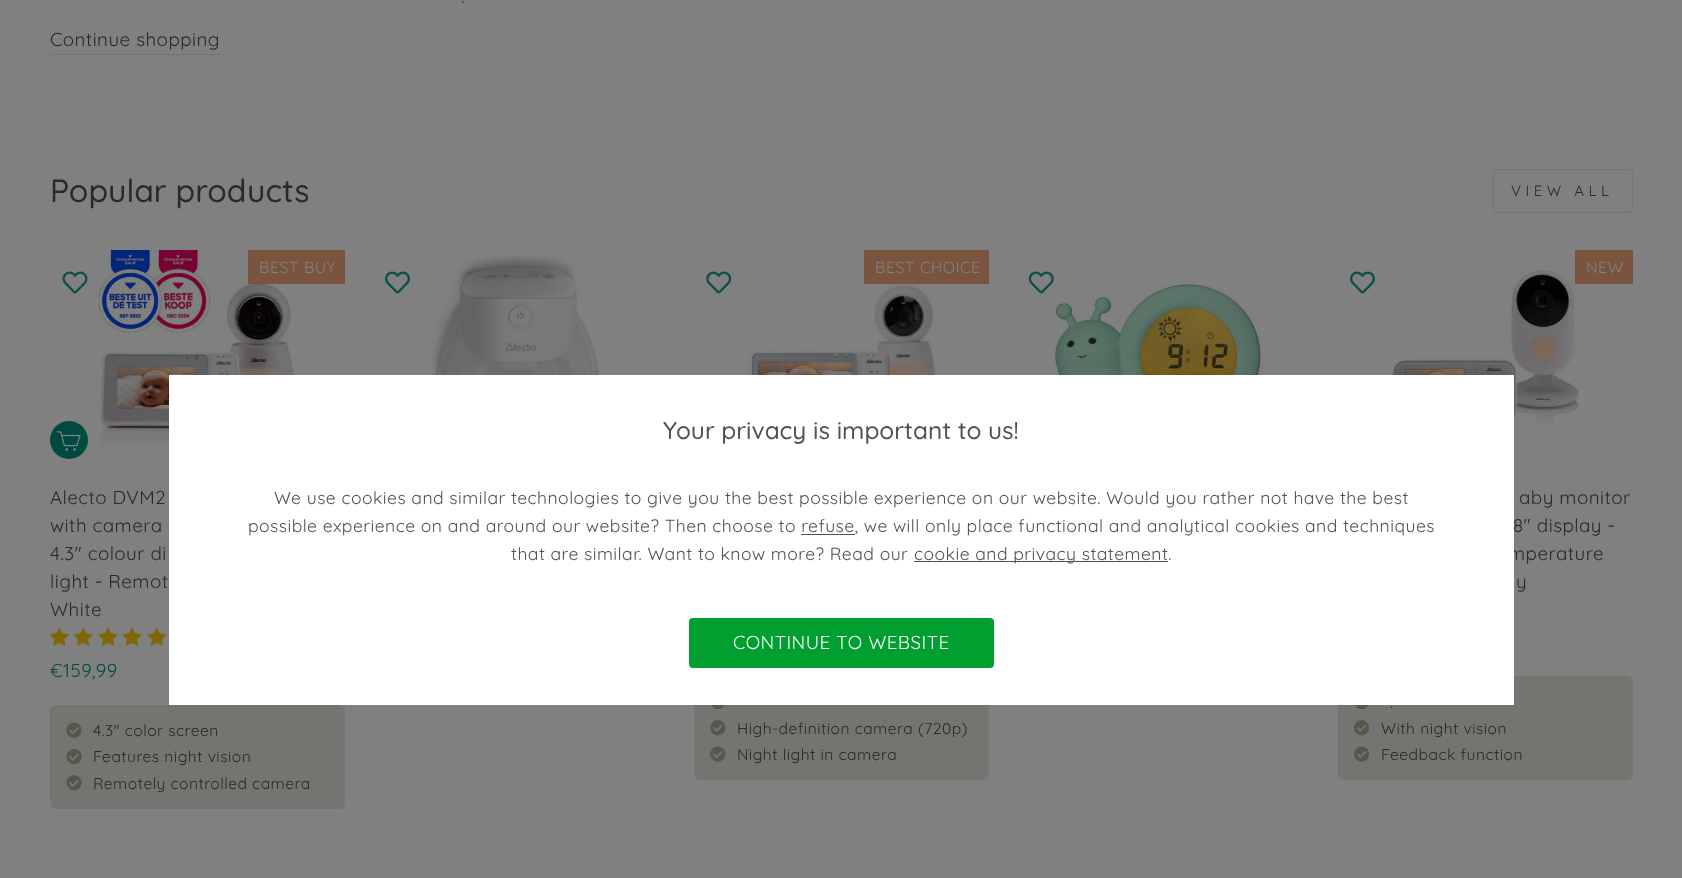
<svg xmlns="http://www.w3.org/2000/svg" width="1682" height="878">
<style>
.a{font:18.75px Quicksand;letter-spacing:0.47px;fill:#292929}
.b{font:500 32px Quicksand;fill:#292929}
.c{font:15px Quicksand;letter-spacing:4.5px;fill:#292929}
.d{font:16px Quicksand;letter-spacing:0.47px;fill:#808080}
.e{font:18.75px Quicksand;letter-spacing:0.47px;fill:#004a42}
.f{font:15.6px Quicksand;letter-spacing:0.47px;fill:#292929}
.g{font:500 24.4px Quicksand;fill:#515151}
.h{font:17.5px Quicksand;letter-spacing:0.47px;fill:#515151}
.i{font:18.75px Quicksand;letter-spacing:0.47px;fill:#fff}
</style>
<rect width="100%" height="100%" fill="#808080"/>
<path fill="#737373" d="M50 54h170v1H50z"/>
<rect fill="none" stroke="#747471" x="1493.5" y="169.5" width="139" height="43" rx="3.5"/>
<image href="2.png" x="86" y="250" width="221" height="221"/>
<path fill="#7b5440" d="M248 250h97v34H248z"/>
<image href="1.png" x="62" y="271" width="26" height="23"/>
<circle fill="#004a42" cx="69" cy="440" r="19"/>
<image href="3.png" x="56" y="431" width="25" height="20"/>
<image href="4.png" x="50" y="627" width="19" height="19"/>
<image href="5.png" x="73" y="627" width="20" height="19"/>
<image href="5.png" x="98" y="627" width="20" height="19"/>
<image href="6.png" x="122" y="627" width="20" height="19"/>
<image href="6.png" x="147" y="627" width="20" height="19"/>
<rect fill="#747471" x="50" y="705" width="295" height="104" rx="6"/>
<image href="7.png" x="66" y="722" width="16" height="16"/>
<image href="8.png" x="66" y="749" width="16" height="16"/>
<image href="9.png" x="66" y="775" width="16" height="16"/>
<image href="10.png" x="385" y="271" width="25" height="23"/>
<image href="11.png" x="432" y="255" width="167" height="120"/>
<path fill="#7b5440" d="M864 250h125v34H864z"/>
<image href="12.png" x="706" y="271" width="26" height="23"/>
<image href="13.png" x="746" y="285" width="190" height="90"/>
<rect fill="#747471" x="694" y="676" width="295" height="104" rx="6"/>
<image href="14.png" x="711" y="705" width="14" height="5"/>
<image href="15.png" x="710" y="720" width="16" height="16"/>
<image href="16.png" x="710" y="746" width="16" height="16"/>
<image href="17.png" x="1028" y="271" width="26" height="23"/>
<image href="18.png" x="1055" y="284" width="217" height="91"/>
<image href="19.png" x="1375" y="270" width="204" height="170"/>
<path fill="#7b5440" d="M1575 250h58v34H1575z"/>
<image href="10.png" x="1350" y="271" width="25" height="23"/>
<rect fill="#747471" x="1338" y="676" width="295" height="104" rx="6"/>
<image href="20.png" x="1355" y="705" width="14" height="5"/>
<image href="21.png" x="1354" y="720" width="16" height="16"/>
<image href="22.png" x="1354" y="746" width="16" height="16"/>
<text class="a" x="461" y="3">.</text>
<text class="a" x="50" y="46">Continue shopping</text>
<text class="b" x="50" y="202">Popular products</text>
<text class="c" x="1511" y="196">VIEW ALL</text>
<text class="d" x="259" y="273">BEST BUY</text>
<text class="a" x="50" y="504">Alecto DVM2</text>
<text class="a" x="50" y="532">with camera</text>
<text class="a" x="50" y="560">4.3" colour di</text>
<text class="a" x="50" y="588">light - Remot</text>
<text class="a" x="50" y="616">White</text>
<text class="e" x="50" y="677">€159,99</text>
<text class="f" x="93" y="736">4.3" color screen</text>
<text class="f" x="93" y="762">Features night vision</text>
<text class="f" x="93" y="789">Remotely controlled camera</text>
<text class="d" x="875" y="273">BEST CHOICE</text>
<text class="f" x="737" y="734">High-definition camera (720p)</text>
<text class="f" x="737" y="760">Night light in camera</text>
<text class="d" x="1586" y="273">NEW</text>
<text class="a" x="1519" y="504">aby monitor</text>
<text class="a" x="1513" y="532">8" display -</text>
<text class="a" x="1508" y="560">mperature</text>
<text class="a" x="1516" y="588">y</text>
<text class="f" x="1390" y="708">.</text>
<text class="f" x="1381" y="734">With night vision</text>
<text class="f" x="1381" y="760">Feedback function</text>
<path fill="#fff" d="M169 375h1345v330H169z"/>
<text class="g" x="663" y="439">Your privacy is important to us!</text>
<text class="h" x="274" y="504">We use cookies and similar technologies to give you the best possible experience on our website. Would you rather not have the best</text>
<text class="h" x="248" y="532">possible experience on and around our website? Then choose to refuse, we will only place functional and analytical cookies and techniques</text>
<path fill="#515151" d="M801 534h54v1H801z"/>
<text class="h" x="511" y="560">that are similar. Want to know more? Read our</text>
<path fill="#515151" d="M914 561h254v1H914z"/>
<text class="h" x="914" y="560">cookie and privacy statement.</text>
<rect fill="#009f2f" x="689" y="618" width="305" height="50" rx="4"/>
<text class="i" x="733" y="649">CONTINUE TO WEBSITE</text>
</svg>
